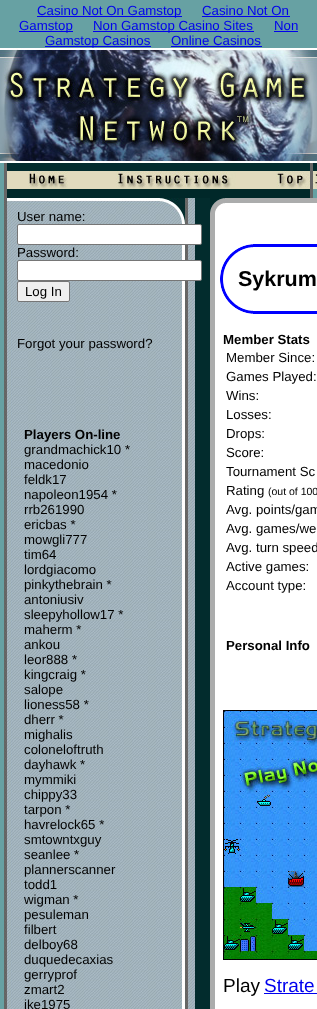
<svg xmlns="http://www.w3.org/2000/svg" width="317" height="1009">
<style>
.a{font:13.25px Liberation Sans;fill:#00e}
.b{font:13.25px Liberation Sans;fill:#000}
.c{font:bold 13.25px Liberation Sans;fill:#000}
.d{font:bold 21.5px Liberation Sans;fill:#000}
.e{font:10.5px Liberation Sans;fill:#000}
.f{font:19px Liberation Sans;fill:#000}
.g{font:19px Liberation Sans;fill:#00e}
</style>
<rect width="100%" height="100%" fill="#67a1a3"/>
<path fill="#00e" d="M37 16h145v1H37z"/>
<path fill="#00e" d="M202 16h88v1H202z"/>
<path fill="#00e" d="M19 31h54v1H19z"/>
<path fill="#00e" d="M93 31h161v1H93z"/>
<path fill="#00e" d="M274 31h24v1H274z"/>
<path fill="#00e" d="M45 46h106v1H45z"/>
<path fill="#00e" d="M171 46h91v1H171z"/>
<image href="1.png" x="0" y="48" width="317" height="115"/>
<image href="2.png" x="7" y="189" width="303" height="9"/>
<path fill="#666" d="M4 163h3v35H4z"/>
<image href="3.png" x="7" y="163" width="310" height="26"/>
<path fill="#666" d="M310 163h3v35H310z"/>
<image href="4.png" x="4" y="198" width="191" height="811"/>
<image href="5.png" x="4" y="198" width="181" height="26"/>
<path fill="#022c2d" d="M195 198h15v811H195z"/>
<rect fill="#fff" stroke="#767676" x="17.5" y="224.5" width="184" height="20" rx="1.5"/>
<rect fill="#fff" stroke="#767676" x="17.5" y="260.5" width="184" height="20" rx="1.5"/>
<rect fill="#efefef" stroke="#767676" x="17.5" y="281.5" width="52" height="20" rx="1.5"/>
<path fill="#fff" d="M215 203h102v806H215z"/>
<path fill="#abacac" d="M210 213h5v796H210z"/>
<path fill="#abacac" d="M225 198h92v5H225z"/>
<image href="6.png" x="210" y="198" width="15" height="15"/>
<image href="7.png" x="220" y="244" width="97" height="70"/>
<image href="8.png" x="223" y="710" width="94" height="250"/>
<path fill="#00e" d="M264 993h53v1H264z"/>
<text class="a" x="37" y="15">Casino Not On Gamstop</text>
<text class="a" x="202" y="15">Casino Not On</text>
<text class="a" x="19" y="30">Gamstop</text>
<text class="a" x="93" y="30">Non Gamstop Casino Sites</text>
<text class="a" x="274" y="30">Non</text>
<text class="a" x="45" y="45">Gamstop Casinos</text>
<text class="a" x="171" y="45">Online Casinos</text>
<text class="b" x="17" y="221">User name:</text>
<text class="b" x="17" y="257">Password:</text>
<text class="b" x="25" y="296">Log In</text>
<text class="b" x="17" y="348">Forgot your password?</text>
<text class="c" x="24" y="439">Players On-line</text>
<text class="b" x="24" y="454">grandmachick10 *</text>
<text class="b" x="24" y="469">macedonio</text>
<text class="b" x="24" y="484">feldk17</text>
<text class="b" x="24" y="499">napoleon1954 *</text>
<text class="b" x="24" y="514">rrb261990</text>
<text class="b" x="24" y="529">ericbas *</text>
<text class="b" x="24" y="544">mowgli777</text>
<text class="b" x="24" y="559">tim64</text>
<text class="b" x="24" y="574">lordgiacomo</text>
<text class="b" x="24" y="589">pinkythebrain *</text>
<text class="b" x="24" y="604">antoniusiv</text>
<text class="b" x="24" y="619">sleepyhollow17 *</text>
<text class="b" x="24" y="634">maherm *</text>
<text class="b" x="24" y="649">ankou</text>
<text class="b" x="24" y="664">leor888 *</text>
<text class="b" x="24" y="679">kingcraig *</text>
<text class="b" x="24" y="694">salope</text>
<text class="b" x="24" y="709">lioness58 *</text>
<text class="b" x="24" y="724">dherr *</text>
<text class="b" x="24" y="739">mighalis</text>
<text class="b" x="24" y="754">coloneloftruth</text>
<text class="b" x="24" y="769">dayhawk *</text>
<text class="b" x="24" y="784">mymmiki</text>
<text class="b" x="24" y="799">chippy33</text>
<text class="b" x="24" y="814">tarpon *</text>
<text class="b" x="24" y="829">havrelock65 *</text>
<text class="b" x="24" y="844">smtowntxguy</text>
<text class="b" x="24" y="859">seanlee *</text>
<text class="b" x="24" y="874">plannerscanner</text>
<text class="b" x="24" y="889">todd1</text>
<text class="b" x="24" y="904">wigman *</text>
<text class="b" x="24" y="919">pesuleman</text>
<text class="b" x="24" y="934">filbert</text>
<text class="b" x="24" y="949">delboy68</text>
<text class="b" x="24" y="964">duquedecaxias</text>
<text class="b" x="24" y="979">gerryprof</text>
<text class="b" x="24" y="994">zmart2</text>
<text class="b" x="24" y="1009">jke1975</text>
<text class="d" x="238" y="286">Sykrum</text>
<text class="c" x="223" y="344">Member Stats</text>
<text class="b" x="226" y="362">Member Since:</text>
<text class="b" x="226" y="381">Games Played:</text>
<text class="b" x="226" y="400">Wins:</text>
<text class="b" x="226" y="419">Losses:</text>
<text class="b" x="226" y="438">Drops:</text>
<text class="b" x="226" y="457">Score:</text>
<text class="b" x="226" y="476">Tournament Sc</text>
<text class="b" x="226" y="495">Rating</text>
<text class="e" x="268" y="495">(out of 100</text>
<text class="b" x="226" y="514">Avg. points/gam</text>
<text class="b" x="226" y="533">Avg. games/we</text>
<text class="b" x="226" y="552">Avg. turn speed</text>
<text class="b" x="226" y="571">Active games:</text>
<text class="b" x="226" y="590">Account type:</text>
<text class="c" x="226" y="650">Personal Info</text>
<text class="f" x="223" y="992">Play</text>
<text class="g" x="264" y="992">Strate</text>
</svg>
